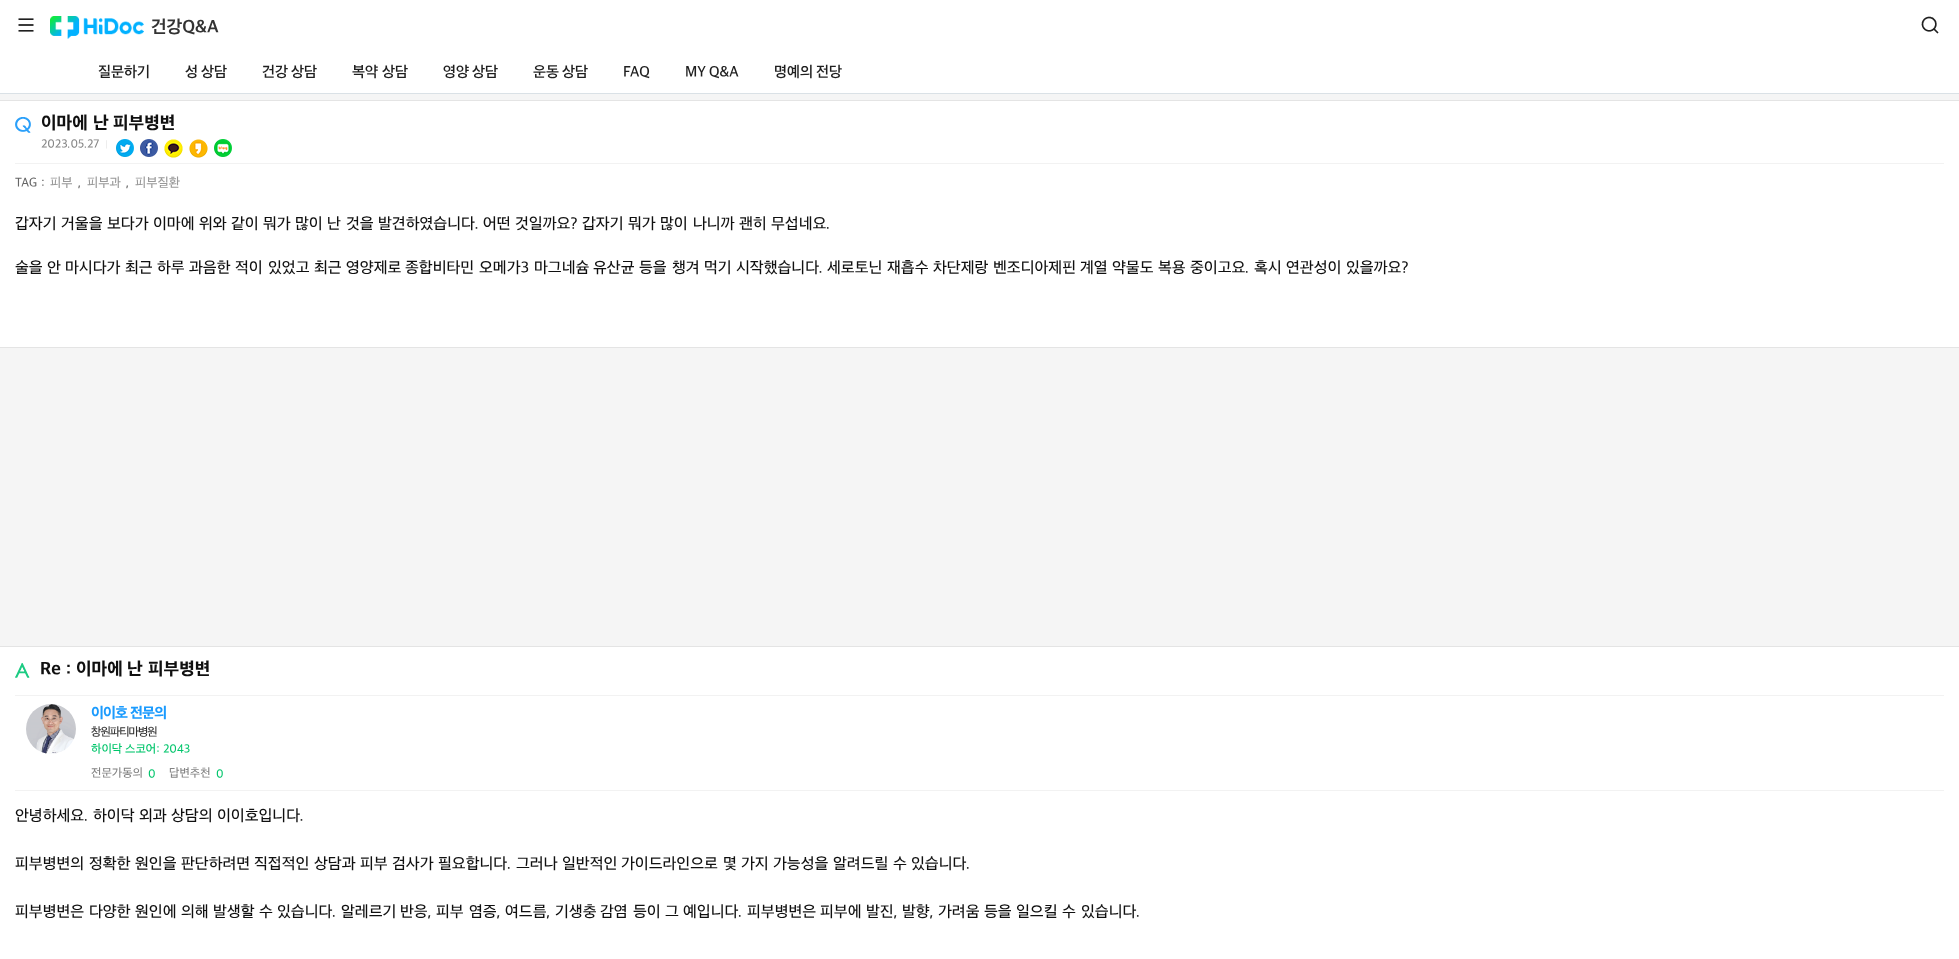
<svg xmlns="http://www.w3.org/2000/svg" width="1959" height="959">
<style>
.a{font:bold 18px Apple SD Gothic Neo;fill:#333}
.b{font:600 15px Apple SD Gothic Neo;fill:#1f1f1f}
.c{font:800 18px Apple SD Gothic Neo;fill:#101010}
.d{font:500 12px Apple SD Gothic Neo;fill:#848484}
.e{font:500 10px Apple SD Gothic Neo;fill:#e8e8e8}
.f{font:500 13px Apple SD Gothic Neo;fill:#666}
.g{font:500 13px Apple SD Gothic Neo;fill:#999}
.h{font:500 16px Apple SD Gothic Neo;fill:#101010}
.i{font:800 15px Apple SD Gothic Neo;letter-spacing:-1px;fill:#1b9bfe}
.j{font:500 12px Apple SD Gothic Neo;letter-spacing:-1px;fill:#333}
.k{font:500 12px Apple SD Gothic Neo;fill:#00c56b}
</style>
<rect width="100%" height="100%" fill="#f5f5f5"/>
<path fill="#fff" d="M0 0h1959v93H0z"/>
<image href="1.png" x="18" y="18" width="16" height="14"/>
<image href="2.png" x="50" y="16" width="94" height="23"/>
<image href="3.png" x="1921" y="16" width="18" height="18"/>
<path fill="#dae1e6" d="M0 93h1959v1H0z"/>
<path fill="#fff" d="M0 101h1959v246H0z"/>
<path fill="#e4e4e4" d="M0 100h1959v1H0z"/>
<path fill="#e4e4e4" d="M0 347h1959v1H0z"/>
<image href="4.png" x="15" y="117" width="16" height="16"/>
<image href="5.png" x="116" y="139" width="18" height="18"/>
<image href="6.png" x="140" y="139" width="18" height="18"/>
<image href="7.png" x="164" y="139" width="19" height="19"/>
<image href="8.png" x="189" y="139" width="19" height="19"/>
<image href="9.png" x="214" y="139" width="18" height="18"/>
<path fill="#f2f2f2" d="M15 163h1929v1H15z"/>
<path fill="#fff" d="M0 647h1959v312H0z"/>
<path fill="#e4e4e4" d="M0 646h1959v1H0z"/>
<image href="10.png" x="15" y="663" width="15" height="15"/>
<path fill="#f2f2f2" d="M15 695h1929v1H15z"/>
<image href="11.png" x="26" y="704" width="50" height="50"/>
<path fill="#f2f2f2" d="M15 790h1929v1H15z"/>
<text class="a" x="151" y="33">건강Q&amp;A</text>
<text class="b" x="98" y="77">질문하기</text>
<text class="b" x="185" y="77">성</text>
<text class="b" x="201" y="77">상담</text>
<text class="b" x="262" y="77">건강</text>
<text class="b" x="291" y="77">상담</text>
<text class="b" x="352" y="77">복약</text>
<text class="b" x="382" y="77">상담</text>
<text class="b" x="443" y="77">영양</text>
<text class="b" x="472" y="77">상담</text>
<text class="b" x="533" y="77">운동</text>
<text class="b" x="562" y="77">상담</text>
<text class="b" x="623" y="77">FAQ</text>
<text class="b" x="685" y="77">MY</text>
<text class="b" x="709" y="77">Q&amp;A</text>
<text class="b" x="774" y="77">명예의</text>
<text class="b" x="816" y="77">전당</text>
<text class="c" x="41" y="129">이마에</text>
<text class="c" x="93" y="129">난</text>
<text class="c" x="113" y="129">피부병변</text>
<text class="d" x="41" y="148">2023.05.27</text>
<text class="e" x="105" y="148">|</text>
<text class="f" x="15" y="187">TAG</text>
<text class="f" x="41" y="187">:</text>
<text class="g" x="50" y="187">피부</text>
<text class="g" x="87" y="187">피부과</text>
<text class="g" x="135" y="187">피부질환</text>
<text class="f" x="78" y="187">,</text>
<text class="f" x="126" y="187">,</text>
<text class="h" x="15" y="229">갑자기</text>
<text class="h" x="61" y="229">거울을</text>
<text class="h" x="107" y="229">보다가</text>
<text class="h" x="153" y="229">이마에</text>
<text class="h" x="199" y="229">위와</text>
<text class="h" x="231" y="229">같이</text>
<text class="h" x="263" y="229">뭐가</text>
<text class="h" x="295" y="229">많이</text>
<text class="h" x="327" y="229">난</text>
<text class="h" x="346" y="229">것을</text>
<text class="h" x="378" y="229">발견하였습니다.</text>
<text class="h" x="483" y="229">어떤</text>
<text class="h" x="515" y="229">것일까요?</text>
<text class="h" x="582" y="229">갑자기</text>
<text class="h" x="628" y="229">뭐가</text>
<text class="h" x="660" y="229">많이</text>
<text class="h" x="693" y="229">나니까</text>
<text class="h" x="739" y="229">괜히</text>
<text class="h" x="771" y="229">무섭네요.</text>
<text class="h" x="15" y="273">술을</text>
<text class="h" x="47" y="273">안</text>
<text class="h" x="65" y="273">마시다가</text>
<text class="h" x="125" y="273">최근</text>
<text class="h" x="157" y="273">하루</text>
<text class="h" x="189" y="273">과음한</text>
<text class="h" x="235" y="273">적이</text>
<text class="h" x="268" y="273">있었고</text>
<text class="h" x="314" y="273">최근</text>
<text class="h" x="346" y="273">영양제로</text>
<text class="h" x="405" y="273">종합비타민</text>
<text class="h" x="479" y="273">오메가3</text>
<text class="h" x="534" y="273">마그네슘</text>
<text class="h" x="593" y="273">유산균</text>
<text class="h" x="639" y="273">등을</text>
<text class="h" x="672" y="273">챙겨</text>
<text class="h" x="704" y="273">먹기</text>
<text class="h" x="736" y="273">시작했습니다.</text>
<text class="h" x="827" y="273">세로토닌</text>
<text class="h" x="887" y="273">재흡수</text>
<text class="h" x="933" y="273">차단제랑</text>
<text class="h" x="993" y="273">벤조디아제핀</text>
<text class="h" x="1080" y="273">계열</text>
<text class="h" x="1112" y="273">약물도</text>
<text class="h" x="1158" y="273">복용</text>
<text class="h" x="1190" y="273">중이고요.</text>
<text class="h" x="1254" y="273">혹시</text>
<text class="h" x="1286" y="273">연관성이</text>
<text class="h" x="1346" y="273">있을까요?</text>
<text class="c" x="40" y="675">Re</text>
<text class="c" x="66" y="675">:</text>
<text class="c" x="76" y="675">이마에</text>
<text class="c" x="127" y="675">난</text>
<text class="c" x="148" y="675">피부병변</text>
<text class="i" x="91" y="718">이이호</text>
<text class="i" x="130" y="718">전문의</text>
<text class="j" x="91" y="736">창원파티마병원</text>
<text class="k" x="91" y="753">하이닥</text>
<text class="k" x="125" y="753">스코어:</text>
<text class="k" x="163" y="753">2043</text>
<text class="d" x="91" y="777">전문가동의</text>
<text class="k" x="148" y="778">0</text>
<text class="d" x="169" y="777">답변추천</text>
<text class="k" x="216" y="778">0</text>
<text class="h" x="15" y="821">안녕하세요.</text>
<text class="h" x="93" y="821">하이닥</text>
<text class="h" x="139" y="821">외과</text>
<text class="h" x="171" y="821">상담의</text>
<text class="h" x="217" y="821">이이호입니다.</text>
<text class="h" x="15" y="869">피부병변의</text>
<text class="h" x="89" y="869">정확한</text>
<text class="h" x="135" y="869">원인을</text>
<text class="h" x="181" y="869">판단하려면</text>
<text class="h" x="254" y="869">직접적인</text>
<text class="h" x="314" y="869">상담과</text>
<text class="h" x="360" y="869">피부</text>
<text class="h" x="392" y="869">검사가</text>
<text class="h" x="438" y="869">필요합니다.</text>
<text class="h" x="516" y="869">그러나</text>
<text class="h" x="562" y="869">일반적인</text>
<text class="h" x="621" y="869">가이드라인으로</text>
<text class="h" x="723" y="869">몇</text>
<text class="h" x="741" y="869">가지</text>
<text class="h" x="773" y="869">가능성을</text>
<text class="h" x="833" y="869">알려드릴</text>
<text class="h" x="893" y="869">수</text>
<text class="h" x="911" y="869">있습니다.</text>
<text class="h" x="15" y="917">피부병변은</text>
<text class="h" x="89" y="917">다양한</text>
<text class="h" x="135" y="917">원인에</text>
<text class="h" x="181" y="917">의해</text>
<text class="h" x="213" y="917">발생할</text>
<text class="h" x="259" y="917">수</text>
<text class="h" x="277" y="917">있습니다.</text>
<text class="h" x="341" y="917">알레르기</text>
<text class="h" x="400" y="917">반응,</text>
<text class="h" x="436" y="917">피부</text>
<text class="h" x="469" y="917">염증,</text>
<text class="h" x="505" y="917">여드름,</text>
<text class="h" x="555" y="917">기생충</text>
<text class="h" x="600" y="917">감염</text>
<text class="h" x="633" y="917">등이</text>
<text class="h" x="665" y="917">그</text>
<text class="h" x="683" y="917">예입니다.</text>
<text class="h" x="747" y="917">피부병변은</text>
<text class="h" x="820" y="917">피부에</text>
<text class="h" x="866" y="917">발진,</text>
<text class="h" x="902" y="917">발향,</text>
<text class="h" x="938" y="917">가려움</text>
<text class="h" x="984" y="917">등을</text>
<text class="h" x="1016" y="917">일으킬</text>
<text class="h" x="1062" y="917">수</text>
<text class="h" x="1081" y="917">있습니다.</text>
</svg>
